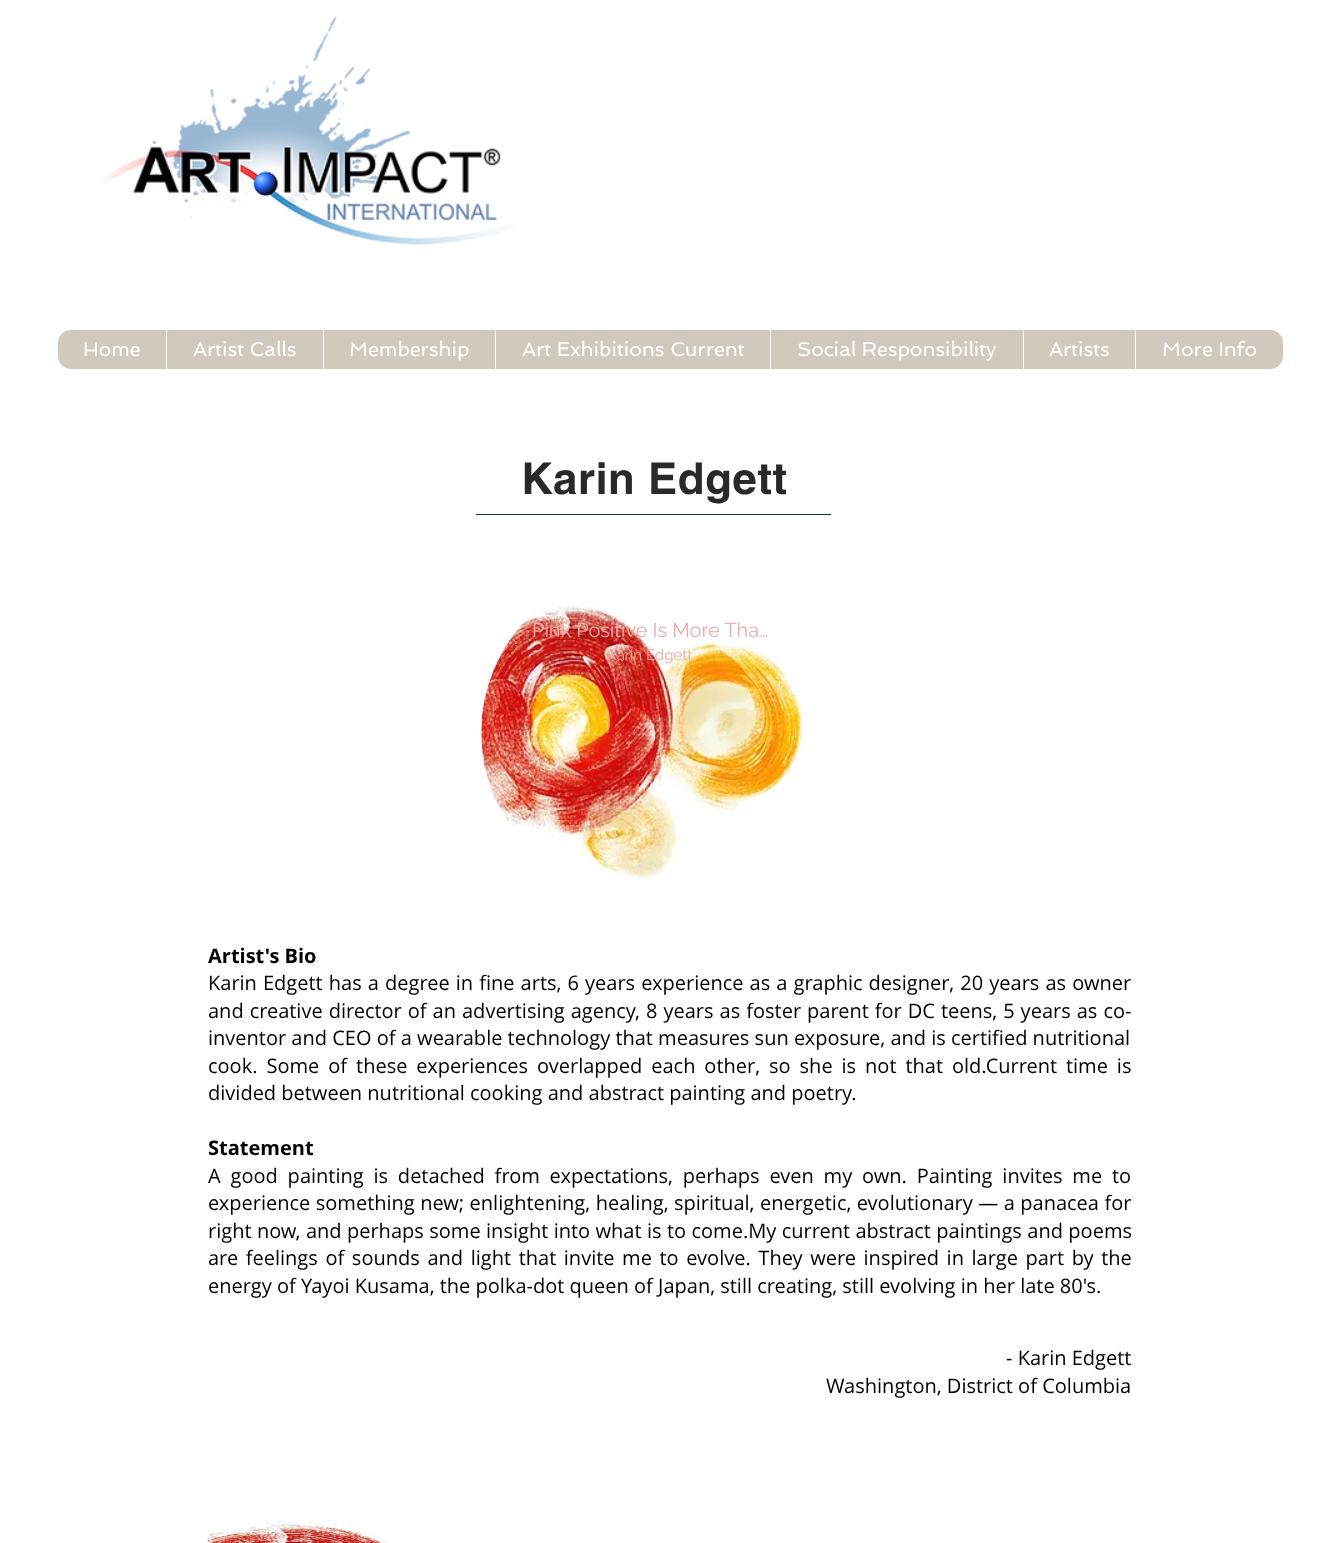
<svg xmlns="http://www.w3.org/2000/svg" width="1339" height="1543">
<style>
.a{font:20px Spinnaker;fill:#fff}
.b{font:bold 43.75px helvetica;letter-spacing:0.5px;fill:#292929}
.c{font:20px Raleway;fill:#e9adaa}
.d{font:15px Raleway;fill:#eaaca1}
.e{font:bold 20px Open Sans;fill:#000}
.f{font:20px Open Sans;fill:#000}
</style>
<rect width="100%" height="100%" fill="#fff"/>
<image href="1.png" x="103" y="16" width="412" height="229"/>
<rect fill="#d2c9be" x="58" y="330" width="1225" height="39" rx="13"/>
<path fill="#fff" d="M166 330h1v39H166z"/>
<path fill="#fff" d="M323 330h1v39H323z"/>
<path fill="#fff" d="M495 330h1v39H495z"/>
<path fill="#fff" d="M770 330h1v39H770z"/>
<path fill="#fff" d="M1023 330h1v39H1023z"/>
<path fill="#fff" d="M1135 330h1v39H1135z"/>
<path fill="#0a3942" d="M476 514h355v1H476z"/>
<image href="2.png" x="481" y="606" width="322" height="275"/>
<image href="3.png" x="207" y="1522" width="181" height="21"/>
<text class="a" x="83" y="356">Home</text>
<text class="a" x="193" y="356">Artist Calls</text>
<text class="a" x="349" y="356">Membership</text>
<text class="a" x="522" y="356">Art Exhibitions Current</text>
<text class="a" x="797" y="356">Social Responsibility</text>
<text class="a" x="1049" y="356">Artists</text>
<text class="a" x="1162" y="356">More Info</text>
<text class="b" x="521" y="494">Karin Edgett</text>
<text class="c" x="532" y="637">Pink Positive Is More Tha…</text>
<text class="d" x="607" y="660">Karin Edgett</text>
<text class="e" x="208" y="963">Artist's Bio</text>
<text class="f" x="208" y="990" word-spacing="0.9">Karin Edgett has a degree in fine arts, 6 years experience as a graphic designer, 20 years as owner</text>
<text class="f" x="208" y="1018" word-spacing="0.8">and creative director of an advertising agency, 8 years as foster parent for DC teens, 5 years as co-</text>
<text class="f" x="208" y="1045">inventor and CEO of a wearable technology that measures sun exposure, and is certified nutritional</text>
<text class="f" x="208" y="1073" word-spacing="3.75">cook. Some of these experiences overlapped each other, so she is not that old.Current time is</text>
<text class="f" x="208" y="1100">divided between nutritional cooking and abstract painting and poetry.</text>
<text class="e" x="208" y="1155">Statement</text>
<text class="f" x="208" y="1183" word-spacing="4.6">A good painting is detached from expectations, perhaps even my own. Painting invites me to</text>
<text class="f" x="208" y="1210" word-spacing="0.25">experience something new; enlightening, healing, spiritual, energetic, evolutionary — a panacea for</text>
<text class="f" x="208" y="1238" word-spacing="0.2">right now, and perhaps some insight into what is to come.My current abstract paintings and poems</text>
<text class="f" x="208" y="1265" word-spacing="2.4">are feelings of sounds and light that invite me to evolve. They were inspired in large part by the</text>
<text class="f" x="208" y="1293">energy of Yayoi Kusama, the polka-dot queen of Japan, still creating, still evolving in her late 80's.</text>
<text class="f" x="1006" y="1365">- Karin Edgett</text>
<text class="f" x="826" y="1393">Washington, District of Columbia</text>
</svg>
